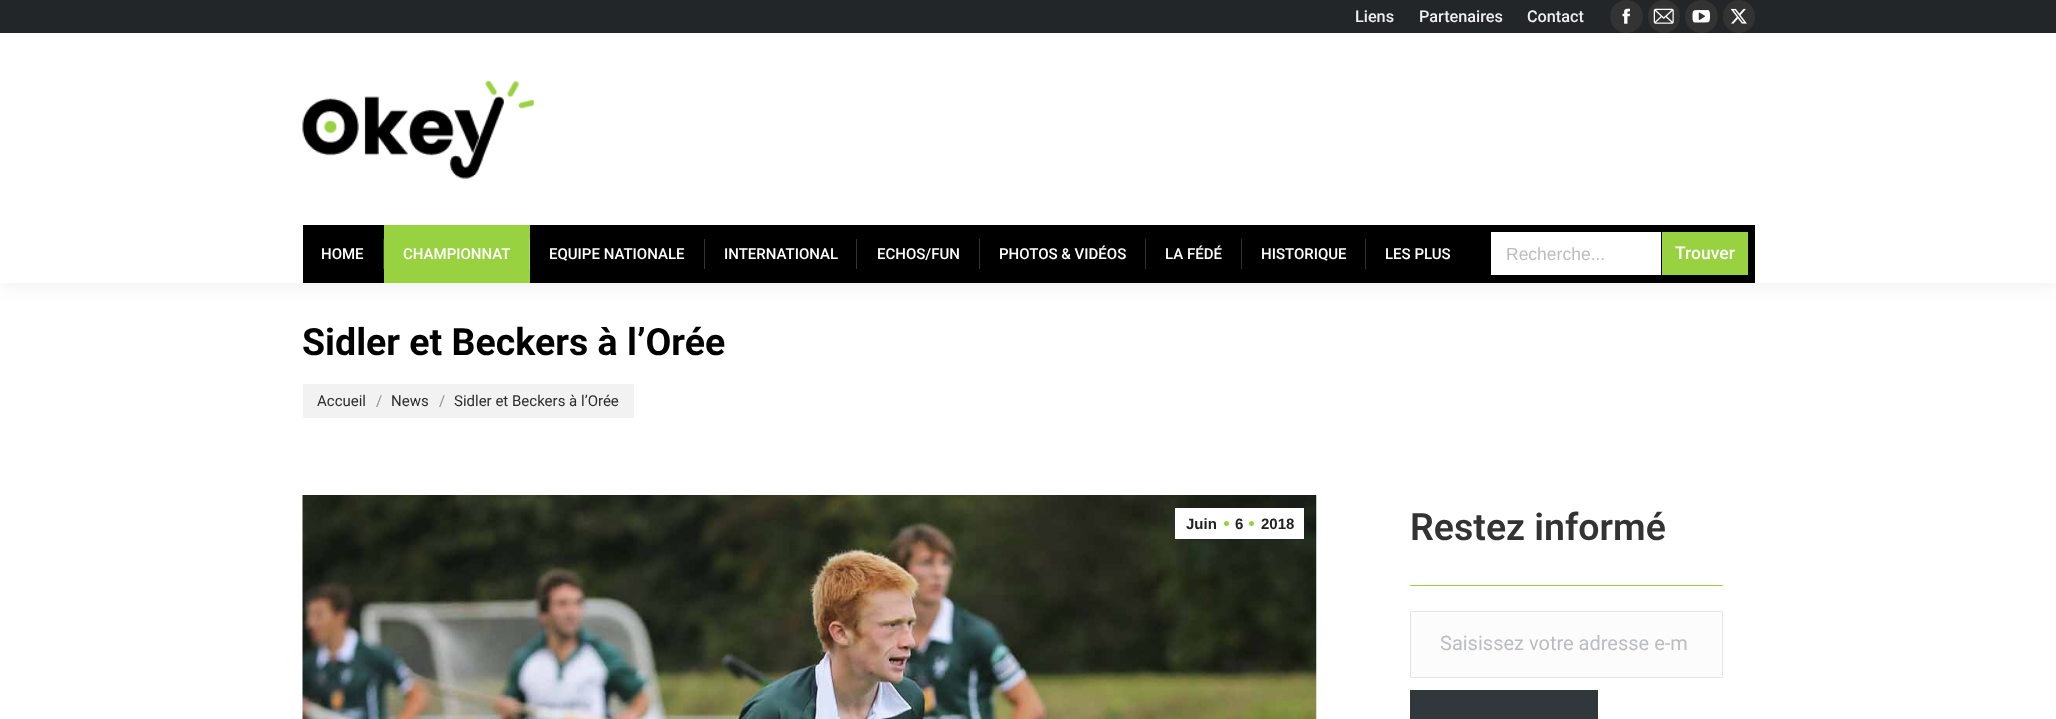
<svg xmlns="http://www.w3.org/2000/svg" width="2056" height="719">
<style>
.a{font:500 16.25px Roboto;fill:#efefef}
.b{font:500 15px Roboto;fill:#fff}
.c{font:17.5px Liberation Sans;fill:#babdc1}
.d{font:500 17.5px Roboto;fill:#fff}
.e{font:bold 37.5px Roboto;fill:#000}
.f{font:15px Roboto;fill:#2d2d2d}
.g{font:15px Roboto;fill:#909090}
.h{font:bold 15px Liberation Sans;fill:#222}
.i{font:600 37.5px Roboto;fill:#333}
.j{font:20px Roboto;fill:#babdc1}
</style>
<rect width="100%" height="100%" fill="#fff"/>
<path fill="#00000012" filter="blur(9.5px)" d="M-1 -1h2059v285H-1z"/>
<path fill="#fff" d="M0 33h2056v250H0z"/>
<path fill="#232629" d="M0 0h2056v33H0z"/>
<circle fill="#333" cx="1626.5" cy="16.5" r="16.5"/>
<image href="1.png" x="1622" y="8" width="8" height="16"/>
<rect fill="#333" x="1648" width="32" height="33" rx="16"/>
<image href="2.png" x="1653" y="8" width="21" height="16"/>
<circle fill="#333" cx="1701.5" cy="16.5" r="16.5"/>
<image href="3.png" x="1692" y="10" width="18" height="13"/>
<rect fill="#333" x="1723" width="32" height="33" rx="16"/>
<image href="4.png" x="1730" y="8" width="17" height="16"/>
<image href="5.png" x="302" y="80" width="232" height="99"/>
<path fill="#000" d="M303 225h1452v58H303z"/>
<path fill="#333" d="M383 239h1v30H383z"/>
<path fill="#99d240" d="M384 225h146v58H384z"/>
<path fill="#addb66" d="M529 239h1v30H529z"/>
<path fill="#333" d="M704 239h1v30H704z"/>
<path fill="#333" d="M856 239h1v30H856z"/>
<path fill="#333" d="M979 239h1v30H979z"/>
<path fill="#333" d="M1145 239h1v30H1145z"/>
<path fill="#333" d="M1241 239h1v30H1241z"/>
<path fill="#333" d="M1365 239h1v30H1365z"/>
<path fill="#fff" d="M1491 232h170v43H1491z"/>
<path fill="#99d240" d="M1662 232h86v43H1662z"/>
<path fill="#f2f2f2" d="M303 384h331v34H303z"/>
<image href="6.png" x="302" y="495" width="1015" height="224"/>
<path fill="#fff" d="M1175 508h129v31H1175z"/>
<circle fill="#99d240" cx="1226.5" cy="523.5" r="2.5"/>
<circle fill="#99d240" cx="1251.5" cy="523.5" r="2.5"/>
<path fill="#99d240" d="M1410 585h313v1H1410z"/>
<path fill="#fcfcfc" stroke="#e4e5e7" d="M1410.5 611.5h312v66H1410.5z"/>
<path fill="#32373c" d="M1410 690h188v29H1410z"/>
<text class="a" x="1355" y="22">Liens</text>
<text class="a" x="1419" y="22">Partenaires</text>
<text class="a" x="1527" y="22">Contact</text>
<text class="b" x="321" y="259">HOME</text>
<text class="b" x="403" y="259">CHAMPIONNAT</text>
<text class="b" x="549" y="259">EQUIPE NATIONALE</text>
<text class="b" x="724" y="259">INTERNATIONAL</text>
<text class="b" x="877" y="259">ECHOS/FUN</text>
<text class="b" x="999" y="259">PHOTOS &amp; VIDÉOS</text>
<text class="b" x="1165" y="259">LA FÉDÉ</text>
<text class="b" x="1261" y="259">HISTORIQUE</text>
<text class="b" x="1385" y="259">LES PLUS</text>
<text class="c" x="1506" y="260">Recherche...</text>
<text class="d" x="1675" y="259">Trouver</text>
<text class="e" x="302" y="355">Sidler et Beckers à l’Orée</text>
<text class="f" x="317" y="406">Accueil</text>
<text class="g" x="376" y="406">/</text>
<text class="f" x="391" y="406">News</text>
<text class="g" x="439" y="406">/</text>
<text class="f" x="454" y="406">Sidler et Beckers à l’Orée</text>
<text class="h" x="1186" y="529">Juin</text>
<text class="h" x="1235" y="529">6</text>
<text class="h" x="1261" y="529">2018</text>
<text class="i" x="1410" y="540">Restez informé</text>
<text class="j" x="1440" y="650">Saisissez votre adresse e-m</text>
</svg>
